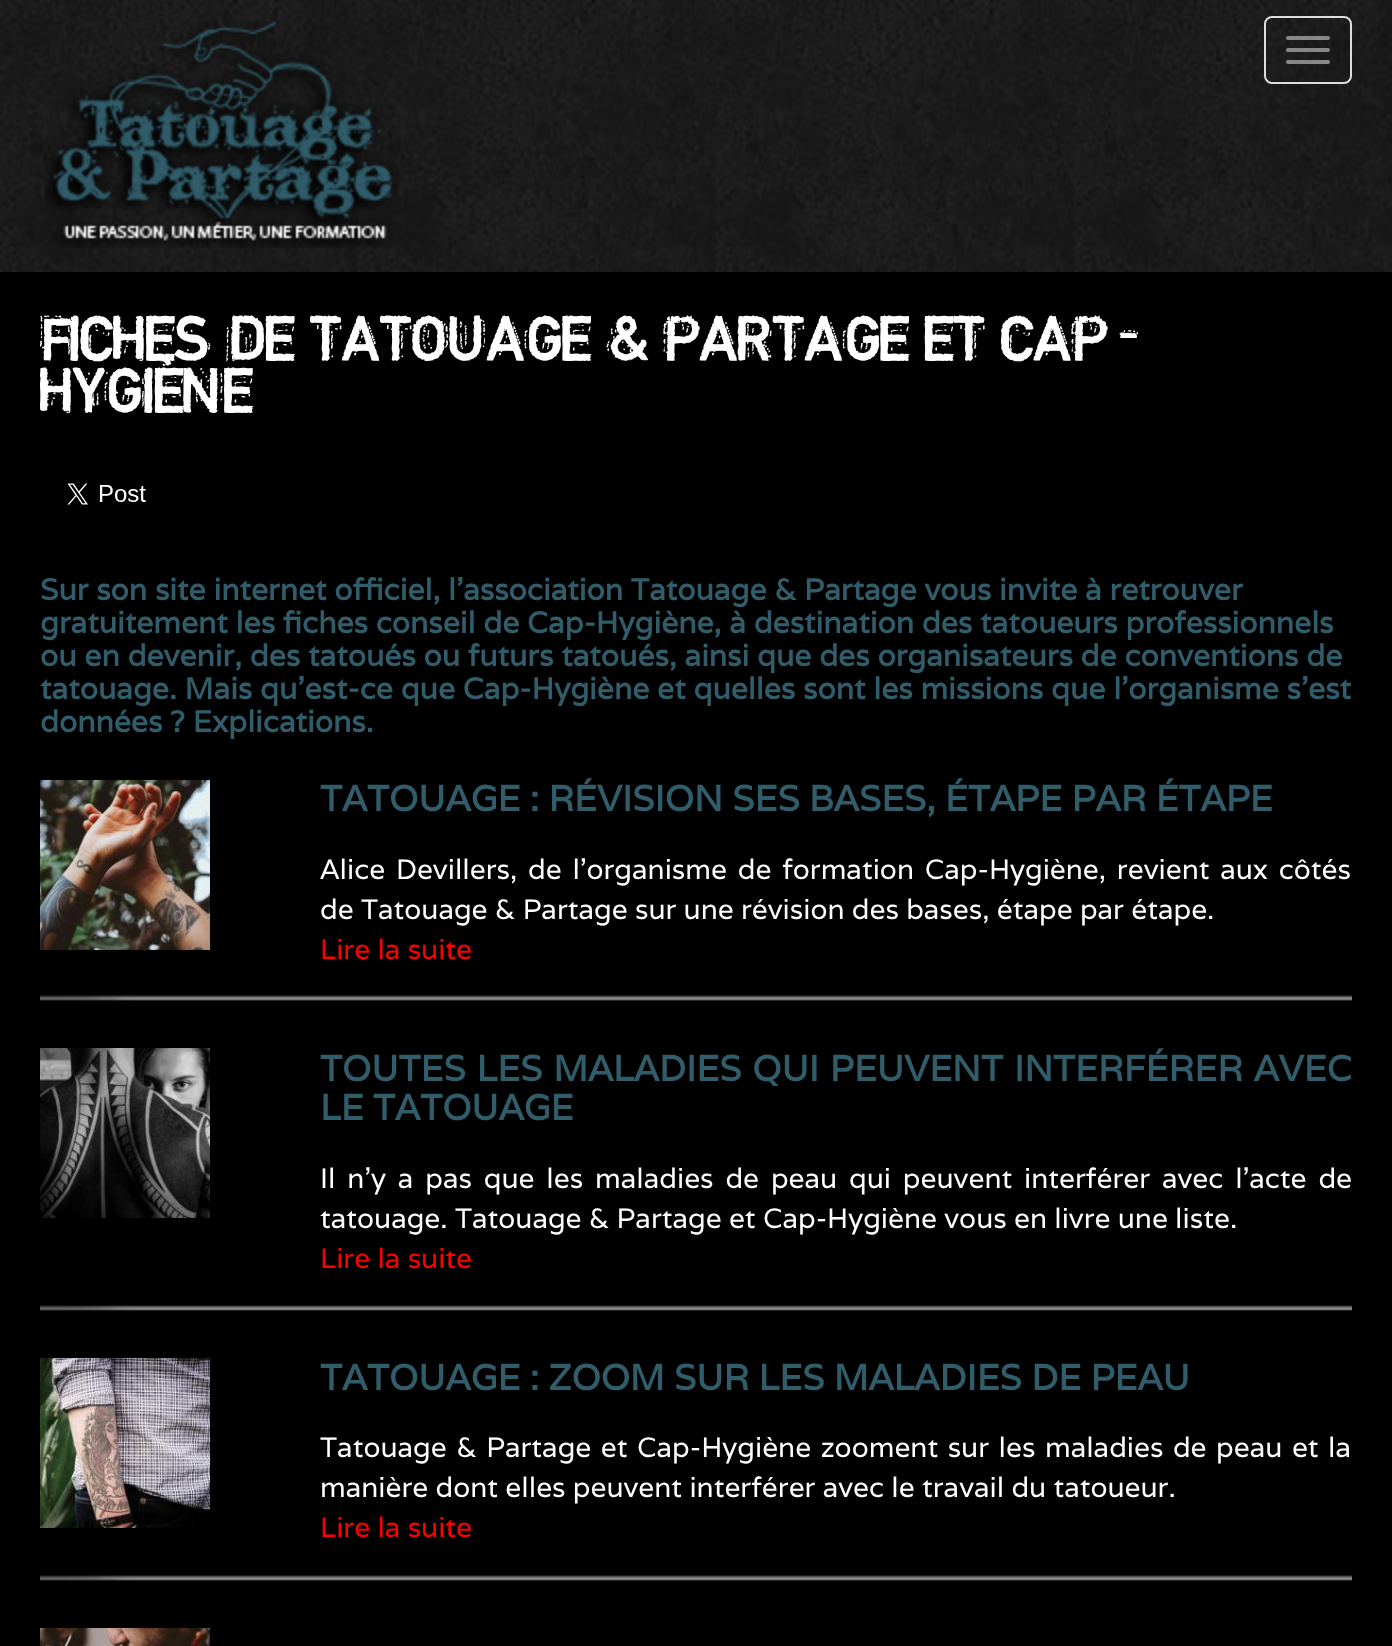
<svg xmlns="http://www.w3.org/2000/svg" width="1392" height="1646">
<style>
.a{font:bold 44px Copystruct;fill:#fff}
.b{font:bold 30px Varela;fill:#315d6b}
.c{font:bold 36px Varela;fill:#315d6b}
.d{font:28px Varela;fill:#fff}
.e{font:28px Varela;fill:#f00}
</style>
<rect width="100%" height="100%" fill="#fff"/>
<image href="1.png" x="0" y="0" width="1392" height="272"/>
<image href="2.png" x="44" y="21" width="354" height="227"/>
<rect fill="none" stroke="#ddd" stroke-width="2" x="1265" y="17" width="86" height="66" rx="7"/>
<rect fill="#888" x="1286" y="36" width="44" height="4" rx="2"/>
<rect fill="#888" x="1286" y="48" width="44" height="4" rx="2"/>
<rect fill="#888" x="1286" y="60" width="44" height="4" rx="2"/>
<path fill="#000" d="M0 272h1392v1374H0z"/>
<image href="3.png" x="67" y="483" width="79" height="22"/>
<image href="4.png" x="40" y="995" width="1312" height="6"/>
<image href="5.png" x="40" y="780" width="170" height="170"/>
<image href="4.png" x="40" y="1305" width="1312" height="6"/>
<image href="6.png" x="40" y="1048" width="170" height="170"/>
<image href="4.png" x="40" y="1575" width="1312" height="6"/>
<image href="7.png" x="40" y="1358" width="170" height="170"/>
<image href="8.png" x="40" y="1628" width="170" height="18"/>
<text class="a" x="40" y="352">FICHES DE TATOUAGE &amp; PARTAGE ET CAP-</text>
<text class="a" x="40" y="404">HYGIÈNE</text>
<text class="b" x="40" y="600">Sur son site internet officiel, l’association Tatouage &amp; Partage vous invite à retrouver</text>
<text class="b" x="40" y="633">gratuitement les fiches conseil de Cap-Hygiène, à destination des tatoueurs professionnels</text>
<text class="b" x="40" y="666">ou en devenir, des tatoués ou futurs tatoués, ainsi que des organisateurs de conventions de</text>
<text class="b" x="40" y="699">tatouage. Mais qu’est-ce que Cap-Hygiène et quelles sont les missions que l’organisme s’est</text>
<text class="b" x="40" y="732">données ? Explications.</text>
<text class="c" x="320" y="811">TATOUAGE : RÉVISION SES BASES, ÉTAPE PAR ÉTAPE</text>
<text class="d" x="320" y="879" word-spacing="3.5">Alice Devillers, de l’organisme de formation Cap-Hygiène, revient aux côtés</text>
<text class="d" x="320" y="919">de Tatouage &amp; Partage sur une révision des bases, étape par étape.</text>
<text class="e" x="320" y="959">Lire la suite</text>
<text class="c" x="320" y="1081" word-spacing="1.5">TOUTES LES MALADIES QUI PEUVENT INTERFÉRER AVEC</text>
<text class="c" x="320" y="1120">LE TATOUAGE</text>
<text class="d" x="320" y="1188" word-spacing="4.6">Il n’y a pas que les maladies de peau qui peuvent interférer avec l’acte de</text>
<text class="d" x="320" y="1228">tatouage. Tatouage &amp; Partage et Cap-Hygiène vous en livre une liste.</text>
<text class="e" x="320" y="1268">Lire la suite</text>
<text class="c" x="320" y="1390">TATOUAGE : ZOOM SUR LES MALADIES DE PEAU</text>
<text class="d" x="320" y="1457" word-spacing="2.25">Tatouage &amp; Partage et Cap-Hygiène zooment sur les maladies de peau et la</text>
<text class="d" x="320" y="1497">manière dont elles peuvent interférer avec le travail du tatoueur.</text>
<text class="e" x="320" y="1537">Lire la suite</text>
</svg>
